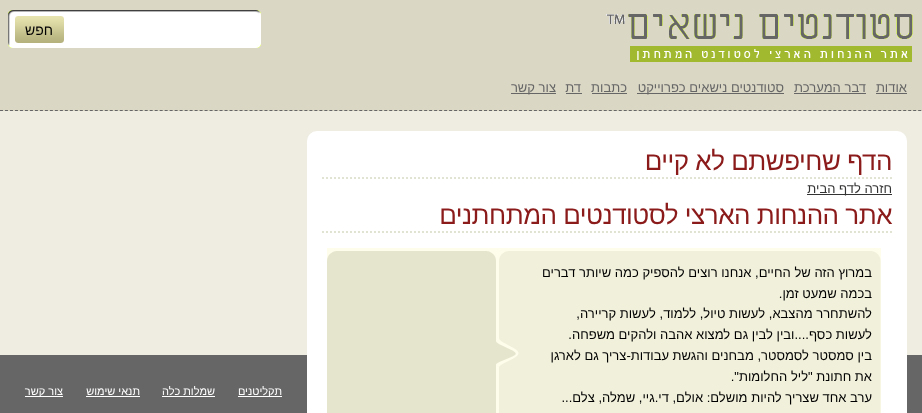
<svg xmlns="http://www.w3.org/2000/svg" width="922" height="413">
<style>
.a{font:14px Liberation Sans;direction:rtl;fill:#000}
.b{font:13px Liberation Sans;direction:rtl;fill:#666}
.c{font:26px Liberation Sans;letter-spacing:-0.5px;direction:rtl;fill:#8b1a1a}
.d{font:13px Liberation Sans;direction:rtl;fill:#333}
.e{font:13px Liberation Sans;direction:rtl;fill:#000}
.f{font:11px Liberation Sans;direction:rtl;fill:#fff}
</style>
<rect width="100%" height="100%" fill="#efede2"/>
<path fill="#dad7c5" d="M0 0h922v111H0z"/>
<path fill="none" stroke="#666" stroke-dasharray="3 1.99" d="M0 110.5h922"/>
<image href="1.png" x="606" y="14" width="307" height="48"/>
<image href="2.png" x="8" y="10" width="253" height="38"/>
<image href="3.png" x="15" y="16" width="49" height="27"/>
<path fill="#666" d="M876 93h31v1H876z"/>
<path fill="#666" d="M794 93h72v1H794z"/>
<path fill="#666" d="M637 93h147v1H637z"/>
<path fill="#666" d="M592 93h35v1H592z"/>
<path fill="#666" d="M566 93h16v1H566z"/>
<path fill="#666" d="M511 93h45v1H511z"/>
<path fill="#666" d="M0 355h922v58H0z"/>
<rect fill="#fff" x="307" y="131" width="600" height="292" rx="10"/>
<path fill="none" stroke="#e1e4d3" stroke-width="2" stroke-dasharray="2 2" d="M322 178h570"/>
<path fill="#333" d="M807 194h85v1H807z"/>
<path fill="none" stroke="#e1e4d3" stroke-width="2" stroke-dasharray="2 2" d="M322 232h570"/>
<image href="4.png" x="327" y="248" width="554" height="165"/>
<path fill="#fff" d="M238 396h44v1H238z"/>
<path fill="#fff" d="M162 396h53v1H162z"/>
<path fill="#fff" d="M86 396h54v1H86z"/>
<path fill="#fff" d="M25 396h38v1H25z"/>
<text class="a" x="53" y="35">חפש</text>
<text class="b" x="907" y="92">אודות</text>
<text class="b" x="866" y="92">דבר המערכת</text>
<text class="b" x="784" y="92">סטודנטים נישאים כפרוייקט</text>
<text class="b" x="627" y="92">כתבות</text>
<text class="b" x="581" y="92">דת</text>
<text class="b" x="556" y="92">צור קשר</text>
<text class="c" x="892" y="170">הדף שחיפשתם לא קיים</text>
<text class="d" x="892" y="193">חזרה לדף הבית</text>
<text class="c" x="892" y="224">אתר ההנחות הארצי לסטודנטים המתחתנים</text>
<text class="e" x="872" y="277">במרוץ הזה של החיים, אנחנו רוצים להספיק כמה שיותר דברים</text>
<text class="e" x="872" y="298">בכמה שמעט זמן.</text>
<text class="e" x="872" y="318">להשתחרר מהצבא, לעשות טיול, ללמוד, לעשות קריירה,</text>
<text class="e" x="872" y="339">לעשות כסף....ובין לבין גם למצוא אהבה ולהקים משפחה.</text>
<text class="e" x="872" y="360">בין סמסטר לסמסטר, מבחנים והגשת עבודות-צריך גם לארגן</text>
<text class="e" x="872" y="381">את חתונת "ליל החלומות".</text>
<text class="e" x="872" y="402">ערב אחד שצריך להיות מושלם: אולם, די.גיי, שמלה, צלם...</text>
<text class="f" x="282" y="395">תקליטנים</text>
<text class="f" x="215" y="395">שמלות כלה</text>
<text class="f" x="140" y="395">תנאי שימוש</text>
<text class="f" x="63" y="395">צור קשר</text>
</svg>
